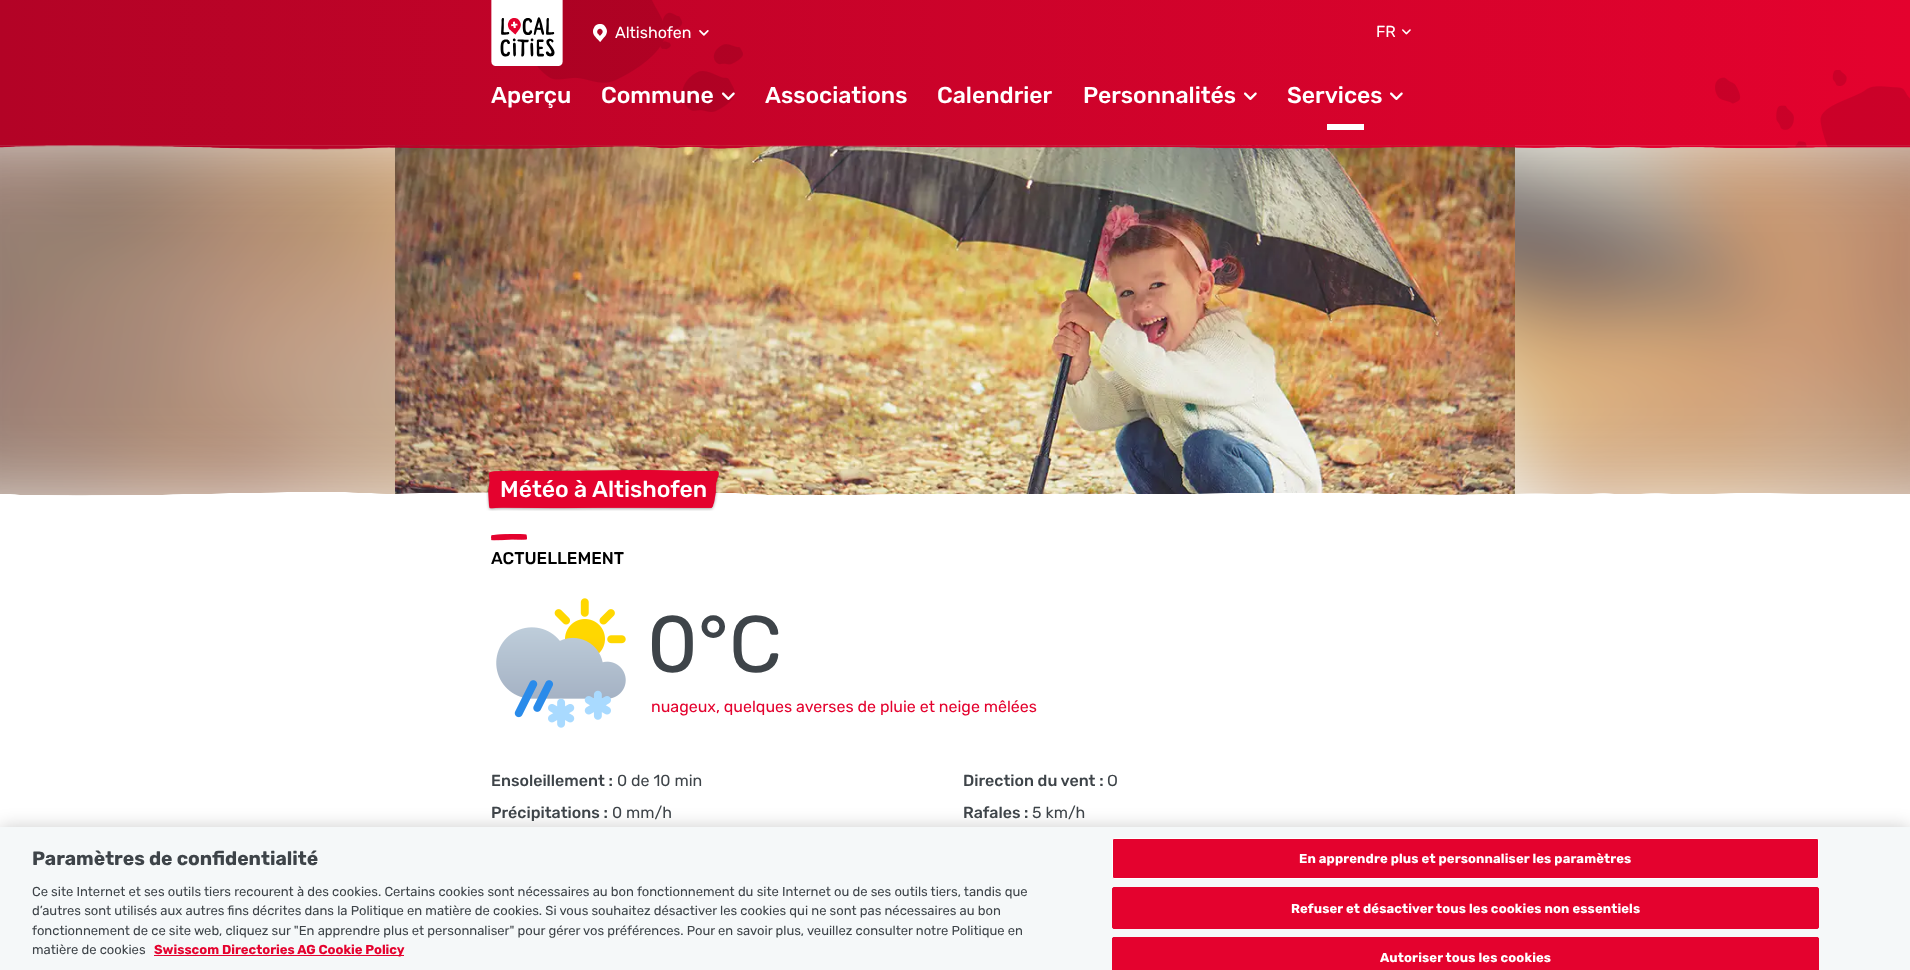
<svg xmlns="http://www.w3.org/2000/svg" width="1910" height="970">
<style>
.a{font:16px Rubik;fill:#fff}
.b{font:500 23px Rubik;fill:#fff}
.c{font:500 17px Rubik;fill:#000}
.d{font:80px Rubik;fill:#3e4449}
.e{font:16px Rubik;fill:#e4022e}
.f{font:500 16px Rubik;fill:#3e4449}
.g{font:16px Rubik;fill:#3e4449}
.h{font:bold 19.25px Rubik;fill:#3e4449}
.i{font:13px Rubik;fill:#3e4449}
.j{font:bold 13px Rubik;fill:#e4022e}
.k{font:bold 13px Rubik;letter-spacing:0.13px;fill:#fff}
</style>
<defs>
<linearGradient id="g1" gradientUnits="userSpaceOnUse" x1="0" y1="73" x2="1910" y2="72"><stop offset="0" stop-color="#b30326"/><stop offset="1" stop-color="#e4022e"/></linearGradient>
</defs>
<rect width="100%" height="100%" fill="#fff"/>
<path fill="url(#g1)" d="M0 0h1910v145H0z"/>
<image href="1.png" x="537" y="0" width="206" height="112"/>
<image href="2.png" x="491" y="0" width="72" height="66"/>
<image href="3.png" x="593" y="24" width="14" height="18"/>
<image href="4.png" x="699" y="30" width="10" height="6"/>
<image href="5.png" x="1402" y="29" width="9" height="6"/>
<image href="6.png" x="722" y="92" width="13" height="8"/>
<image href="7.png" x="1244" y="92" width="13" height="8"/>
<image href="8.png" x="1390" y="92" width="13" height="8"/>
<path fill="#fff" d="M1327 124h37v6H1327z"/>
<image href="11.png" x="0" y="145" width="1910" height="351"/>
<image href="12.png" x="395" y="145" width="1120" height="350"/>
<image href="10.png" x="0" y="145" width="1910" height="5"/>
<image href="9.png" x="1715" y="70" width="195" height="77"/>
<image href="14.png" x="0" y="492" width="1910" height="4"/>
<image href="13.png" x="486" y="469" width="235" height="42"/>
<image href="15.png" x="491" y="534" width="36" height="7"/>
<image href="16.png" x="496" y="598" width="130" height="130"/>
<path fill="#00000033" filter="blur(9px)" d="M0 827h1910v143H0z"/>
<path fill="#f5f8f9" d="M0 827h1910v143H0z"/>
<path fill="#e4022e" d="M154 955h250v1H154z"/>
<rect fill="#e4022e" stroke="#fff" x="1112.5" y="838.5" width="706" height="40" rx="1.5"/>
<rect fill="#e4022e" stroke="#e4022e" x="1112.5" y="887.5" width="706" height="41" rx="1.5"/>
<path fill="#e4022e" d="M1114 937h703c1 0 2 1 2 2v31h-707v-31c0-1 1-2 2-2z"/>
<rect fill="none" stroke="#e4022e" x="1112.5" y="937.5" width="706" height="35" rx="1.5"/>
<text class="a" x="615" y="38">Altishofen</text>
<text class="a" x="1376" y="37">FR</text>
<text class="b" x="491" y="103">Aperçu</text>
<text class="b" x="601" y="103">Commune</text>
<text class="b" x="765" y="103">Associations</text>
<text class="b" x="937" y="103">Calendrier</text>
<text class="b" x="1083" y="103">Personnalités</text>
<text class="b" x="1287" y="103">Services</text>
<text class="b" x="500" y="497">Météo à</text>
<text class="b" x="592" y="497">Altishofen</text>
<text class="c" x="491" y="564">ACTUELLEMENT</text>
<text class="d" x="647" y="672">0°C</text>
<text class="e" x="651" y="712">nuageux, quelques averses de pluie et neige mêlées</text>
<text class="f" x="491" y="786">Ensoleillement :</text>
<text class="g" x="617" y="786">0 de 10 min</text>
<text class="f" x="963" y="786">Direction du vent :</text>
<text class="g" x="1107" y="786">O</text>
<text class="f" x="491" y="818">Précipitations :</text>
<text class="g" x="612" y="818">0 mm/h</text>
<text class="f" x="963" y="818">Rafales :</text>
<text class="g" x="1032" y="818">5 km/h</text>
<text class="h" x="32" y="865">Paramètres de confidentialité</text>
<text class="i" x="32" y="896">Ce site Internet et ses outils tiers recourent à des cookies. Certains cookies sont nécessaires au bon fonctionnement du site Internet ou de ses outils tiers, tandis que</text>
<text class="i" x="32" y="915">d’autres sont utilisés aux autres fins décrites dans la Politique en matière de cookies. Si vous souhaitez désactiver les cookies qui ne sont pas nécessaires au bon</text>
<text class="i" x="32" y="935">fonctionnement de ce site web, cliquez sur "En apprendre plus et personnaliser" pour gérer vos préférences. Pour en savoir plus, veuillez consulter notre Politique en</text>
<text class="i" x="32" y="954">matière de cookies</text>
<text class="j" x="154" y="954">Swisscom Directories AG Cookie Policy</text>
<text class="k" x="1299" y="863">En apprendre plus et personnaliser les paramètres</text>
<text class="k" x="1291" y="913">Refuser et désactiver tous les cookies non essentiels</text>
<text class="k" x="1380" y="962">Autoriser tous les cookies</text>
</svg>
